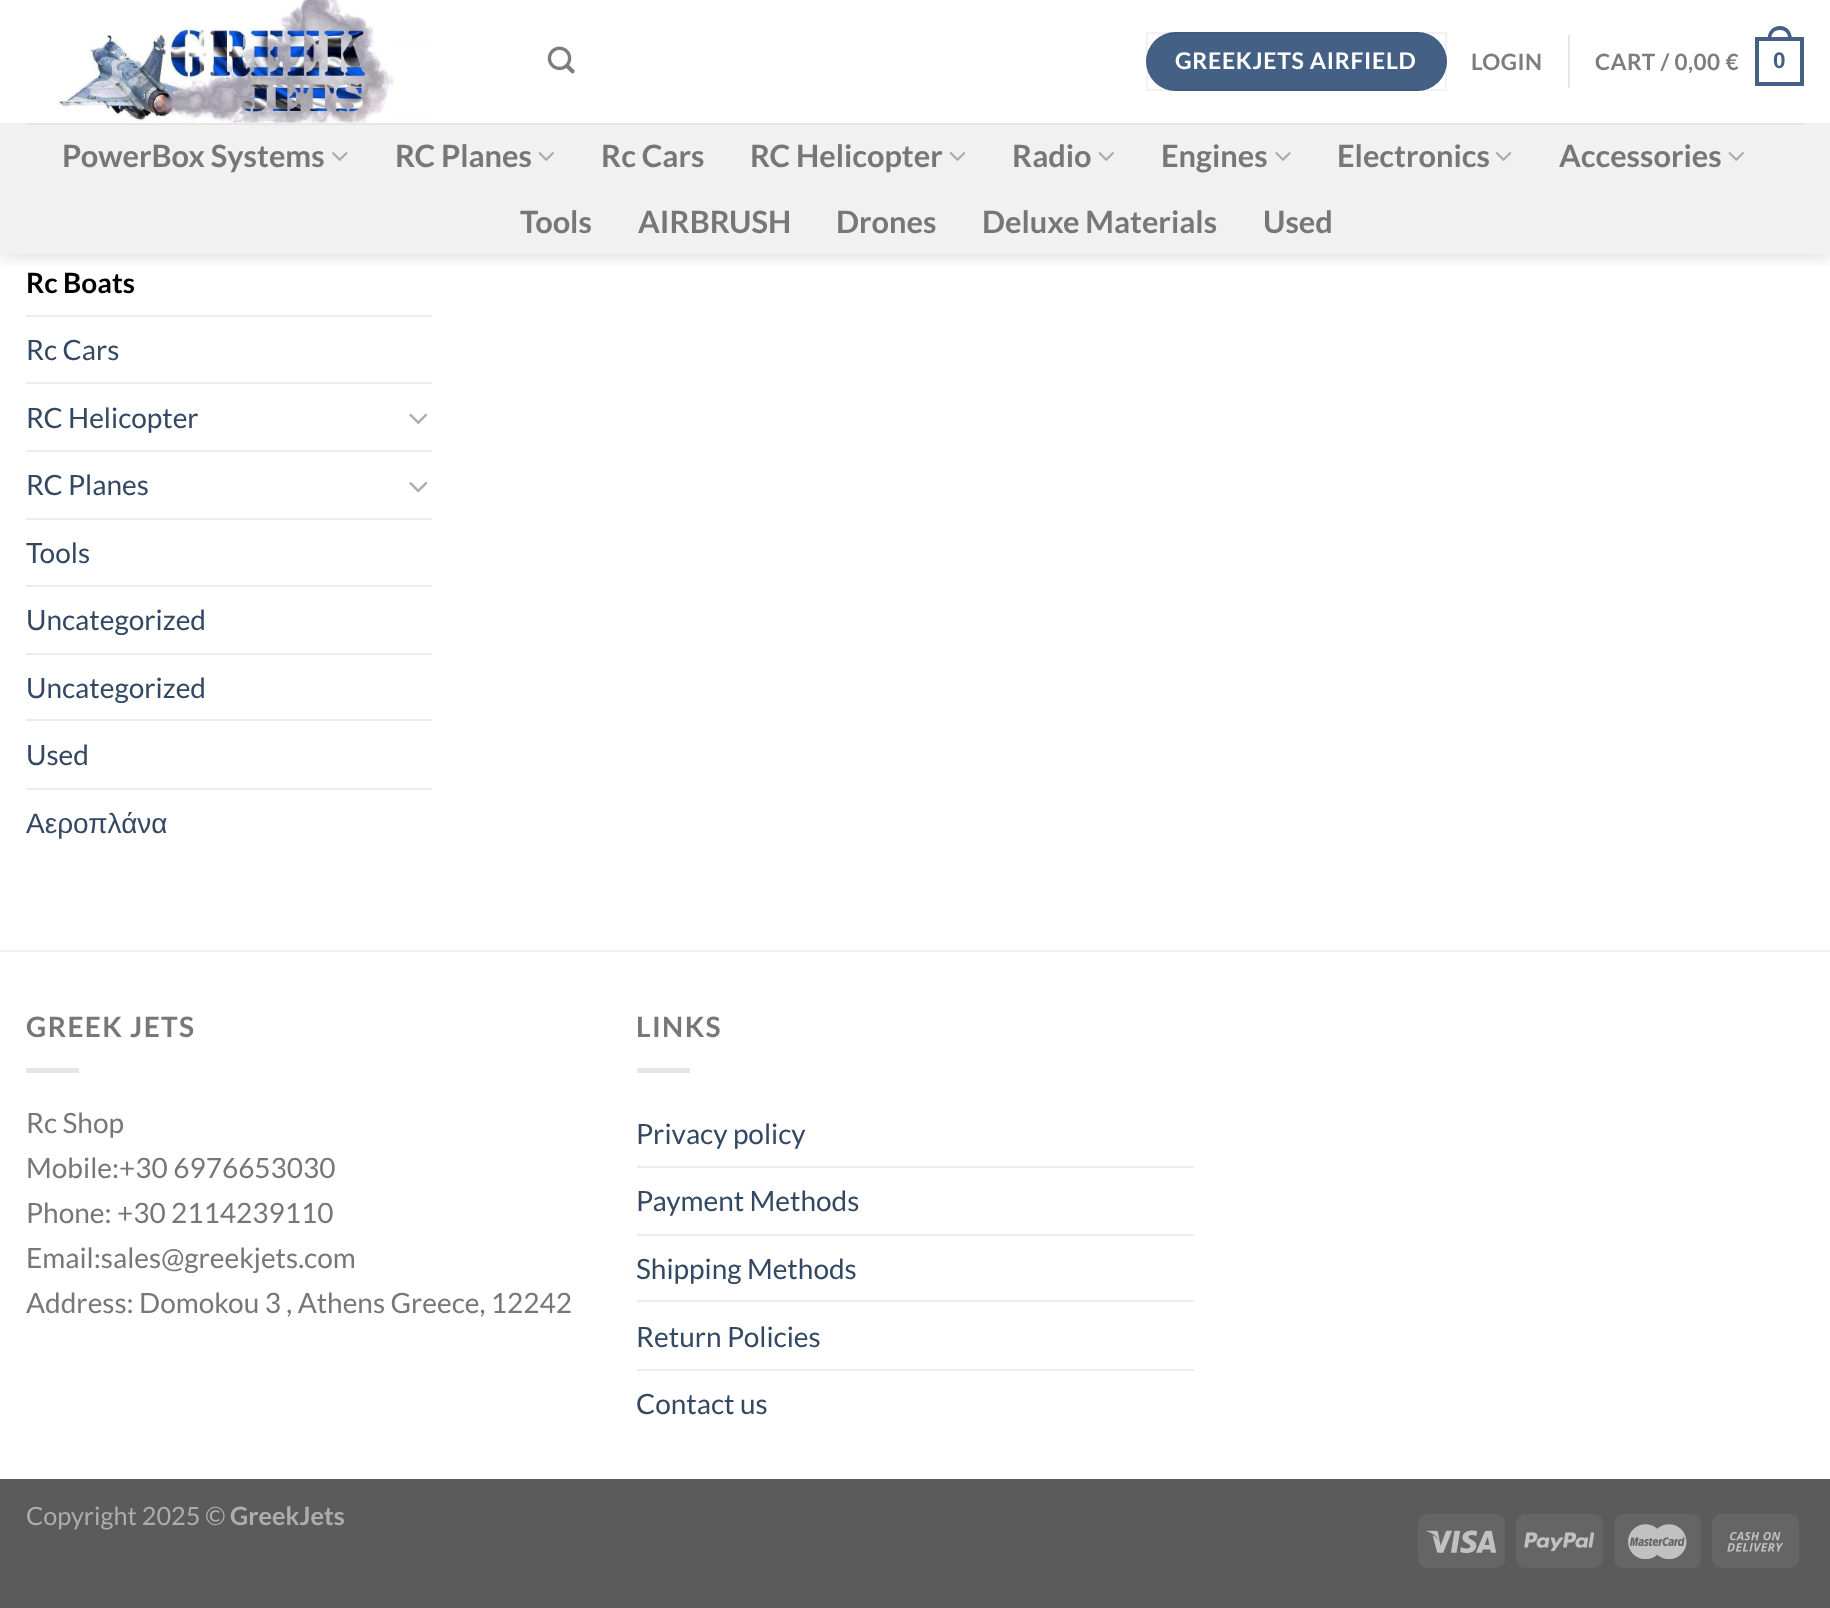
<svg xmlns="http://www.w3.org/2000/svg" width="1830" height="1608">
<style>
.a{font:bold 23px Lato;letter-spacing:0.7px;fill:#fff}
.b{font:bold 22.5px Lato;letter-spacing:0.5px;fill:#7d7d7d}
.c{font:bold 22.5px Liberation Sans;letter-spacing:0.5px;fill:#446084}
.d{font:bold 30.75px Lato;fill:#777}
.e{font:bold 28px Lato;fill:#000}
.f{font:28px Lato;fill:#334862}
.g{font:28px Liberation Sans;fill:#334862}
.h{font:bold 28px Lato;letter-spacing:1.4px;fill:#777}
.i{font:28px Lato;fill:#777}
.j{font:25.25px Lato;fill:#adadad}
.k{font:bold 25.25px Lato;fill:#adadad}
</style>
<defs>
<clipPath id="clip1"><path d="M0 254h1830v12H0z"/></clipPath>
</defs>
<rect width="100%" height="100%" fill="#fff"/>
<path fill="#ececec" d="M26 44h406v2H26z"/>
<path fill="#ececec" d="M26 112h406v2H26z"/>
<g clip-path="url(#clip1)">
<path fill="#00000026" filter="blur(9px)" d="M2 2h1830v254H2z"/>
</g>
<path fill="#ffffffe6" d="M26 44h406v70H26z"/>
<image href="1.png" x="28" y="0" width="366" height="123"/>
<image href="2.png" x="547" y="46" width="28" height="28"/>
<rect fill="#446084" x="1146" y="32" width="301" height="59" rx="29.5"/>
<path fill="none" stroke="#0000000d" stroke-width="2" d="M1147 33h299v57H1147z"/>
<path fill="#e6e6e6" d="M1568 35h2v53H1568z"/>
<path fill="none" stroke="#446084" stroke-width="4" d="M1757 39h45v45H1757z"/>
<path fill="#446084" fill-rule="evenodd" d="M1780 26c8 0 12 6.5 12 14h-24.5c0-7.5 4-14 12.5-14zm0 4c6 0 8.5 4.5 8.5 10h-17.5c0-5.5 2.5-10 9-10z"/>
<path fill="#f1f1f1" d="M0 123h1830v131H0z"/>
<path fill="#e5e5e5" d="M26 123h1778v2H26z"/>
<image href="3.png" x="332" y="152" width="16" height="9"/>
<image href="4.png" x="538" y="152" width="16" height="9"/>
<image href="5.png" x="949" y="152" width="17" height="9"/>
<image href="4.png" x="1098" y="152" width="16" height="9"/>
<image href="6.png" x="1275" y="152" width="16" height="9"/>
<image href="5.png" x="1495" y="152" width="17" height="9"/>
<image href="4.png" x="1728" y="152" width="16" height="9"/>
<path fill="#ececec" d="M26 315h406v2H26z"/>
<path fill="#ececec" d="M26 382h406v2H26z"/>
<image href="7.png" x="409" y="413" width="19" height="12"/>
<path fill="#ececec" d="M26 450h406v2H26z"/>
<image href="8.png" x="409" y="481" width="19" height="12"/>
<path fill="#ececec" d="M26 518h406v2H26z"/>
<path fill="#ececec" d="M26 585h406v2H26z"/>
<path fill="#ececec" d="M26 653h406v2H26z"/>
<path fill="#ececec" d="M26 719h406v2H26z"/>
<path fill="#ececec" d="M26 788h406v2H26z"/>
<path fill="#f2f2f2" d="M0 950h1830v2H0z"/>
<path fill="#e6e6e6" d="M26 1068h53v5H26z"/>
<path fill="#e6e6e6" d="M637 1068h53v5H637z"/>
<path fill="#ececec" d="M637 1166h557v2H637z"/>
<path fill="#ececec" d="M637 1234h557v2H637z"/>
<path fill="#ececec" d="M637 1300h557v2H637z"/>
<path fill="#ececec" d="M637 1369h557v2H637z"/>
<path fill="#5b5b5b" d="M0 1479h1830v129H0z"/>
<rect fill="#656565" x="1418" y="1514" width="87" height="54" rx="9"/>
<image href="9.png" x="1426" y="1530" width="70" height="24"/>
<rect fill="#656565" x="1516" y="1514" width="87" height="54" rx="9"/>
<image href="10.png" x="1524" y="1532" width="70" height="20"/>
<rect fill="#656565" x="1614" y="1514" width="87" height="54" rx="9"/>
<image href="11.png" x="1628" y="1524" width="59" height="35"/>
<rect fill="#656565" x="1712" y="1514" width="87" height="54" rx="9"/>
<image href="12.png" x="1727" y="1532" width="57" height="20"/>
<text class="a" x="1175" y="69">GREEKJETS AIRFIELD</text>
<text class="b" x="1471" y="70">LOGIN</text>
<text class="b" x="1595" y="70">CART / 0,00 €</text>
<text class="c" x="1773" y="68">0</text>
<text class="d" x="62" y="167">PowerBox Systems</text>
<text class="d" x="395" y="167">RC Planes</text>
<text class="d" x="601" y="167">Rc Cars</text>
<text class="d" x="750" y="167">RC Helicopter</text>
<text class="d" x="1012" y="167">Radio</text>
<text class="d" x="1161" y="167">Engines</text>
<text class="d" x="1337" y="167">Electronics</text>
<text class="d" x="1559" y="167">Accessories</text>
<text class="d" x="520" y="233">Tools</text>
<text class="d" x="638" y="233">AIRBRUSH</text>
<text class="d" x="836" y="233">Drones</text>
<text class="d" x="982" y="233">Deluxe Materials</text>
<text class="d" x="1263" y="233">Used</text>
<text class="e" x="26" y="293">Rc Boats</text>
<text class="f" x="26" y="360">Rc Cars</text>
<text class="f" x="26" y="428">RC Helicopter</text>
<text class="f" x="26" y="495">RC Planes</text>
<text class="f" x="26" y="563">Tools</text>
<text class="f" x="26" y="630">Uncategorized</text>
<text class="f" x="26" y="698">Uncategorized</text>
<text class="f" x="26" y="765">Used</text>
<text class="g" x="26" y="833">Αεροπλάνα</text>
<text class="h" x="26" y="1037">GREEK JETS</text>
<text class="i" x="26" y="1133">Rc Shop</text>
<text class="i" x="26" y="1178">Mobile:+30 6976653030</text>
<text class="i" x="26" y="1223">Phone: +30 2114239110</text>
<text class="i" x="26" y="1268">Email:sales@greekjets.com</text>
<text class="i" x="26" y="1313">Address: Domokou 3 , Athens Greece, 12242</text>
<text class="h" x="636" y="1037">LINKS</text>
<text class="f" x="636" y="1144">Privacy policy</text>
<text class="f" x="636" y="1211">Payment Methods</text>
<text class="f" x="636" y="1279">Shipping Methods</text>
<text class="f" x="636" y="1347">Return Policies</text>
<text class="f" x="636" y="1414">Contact us</text>
<text class="j" x="26" y="1525">Copyright 2025 ©</text>
<text class="k" x="230" y="1525">GreekJets</text>
</svg>
